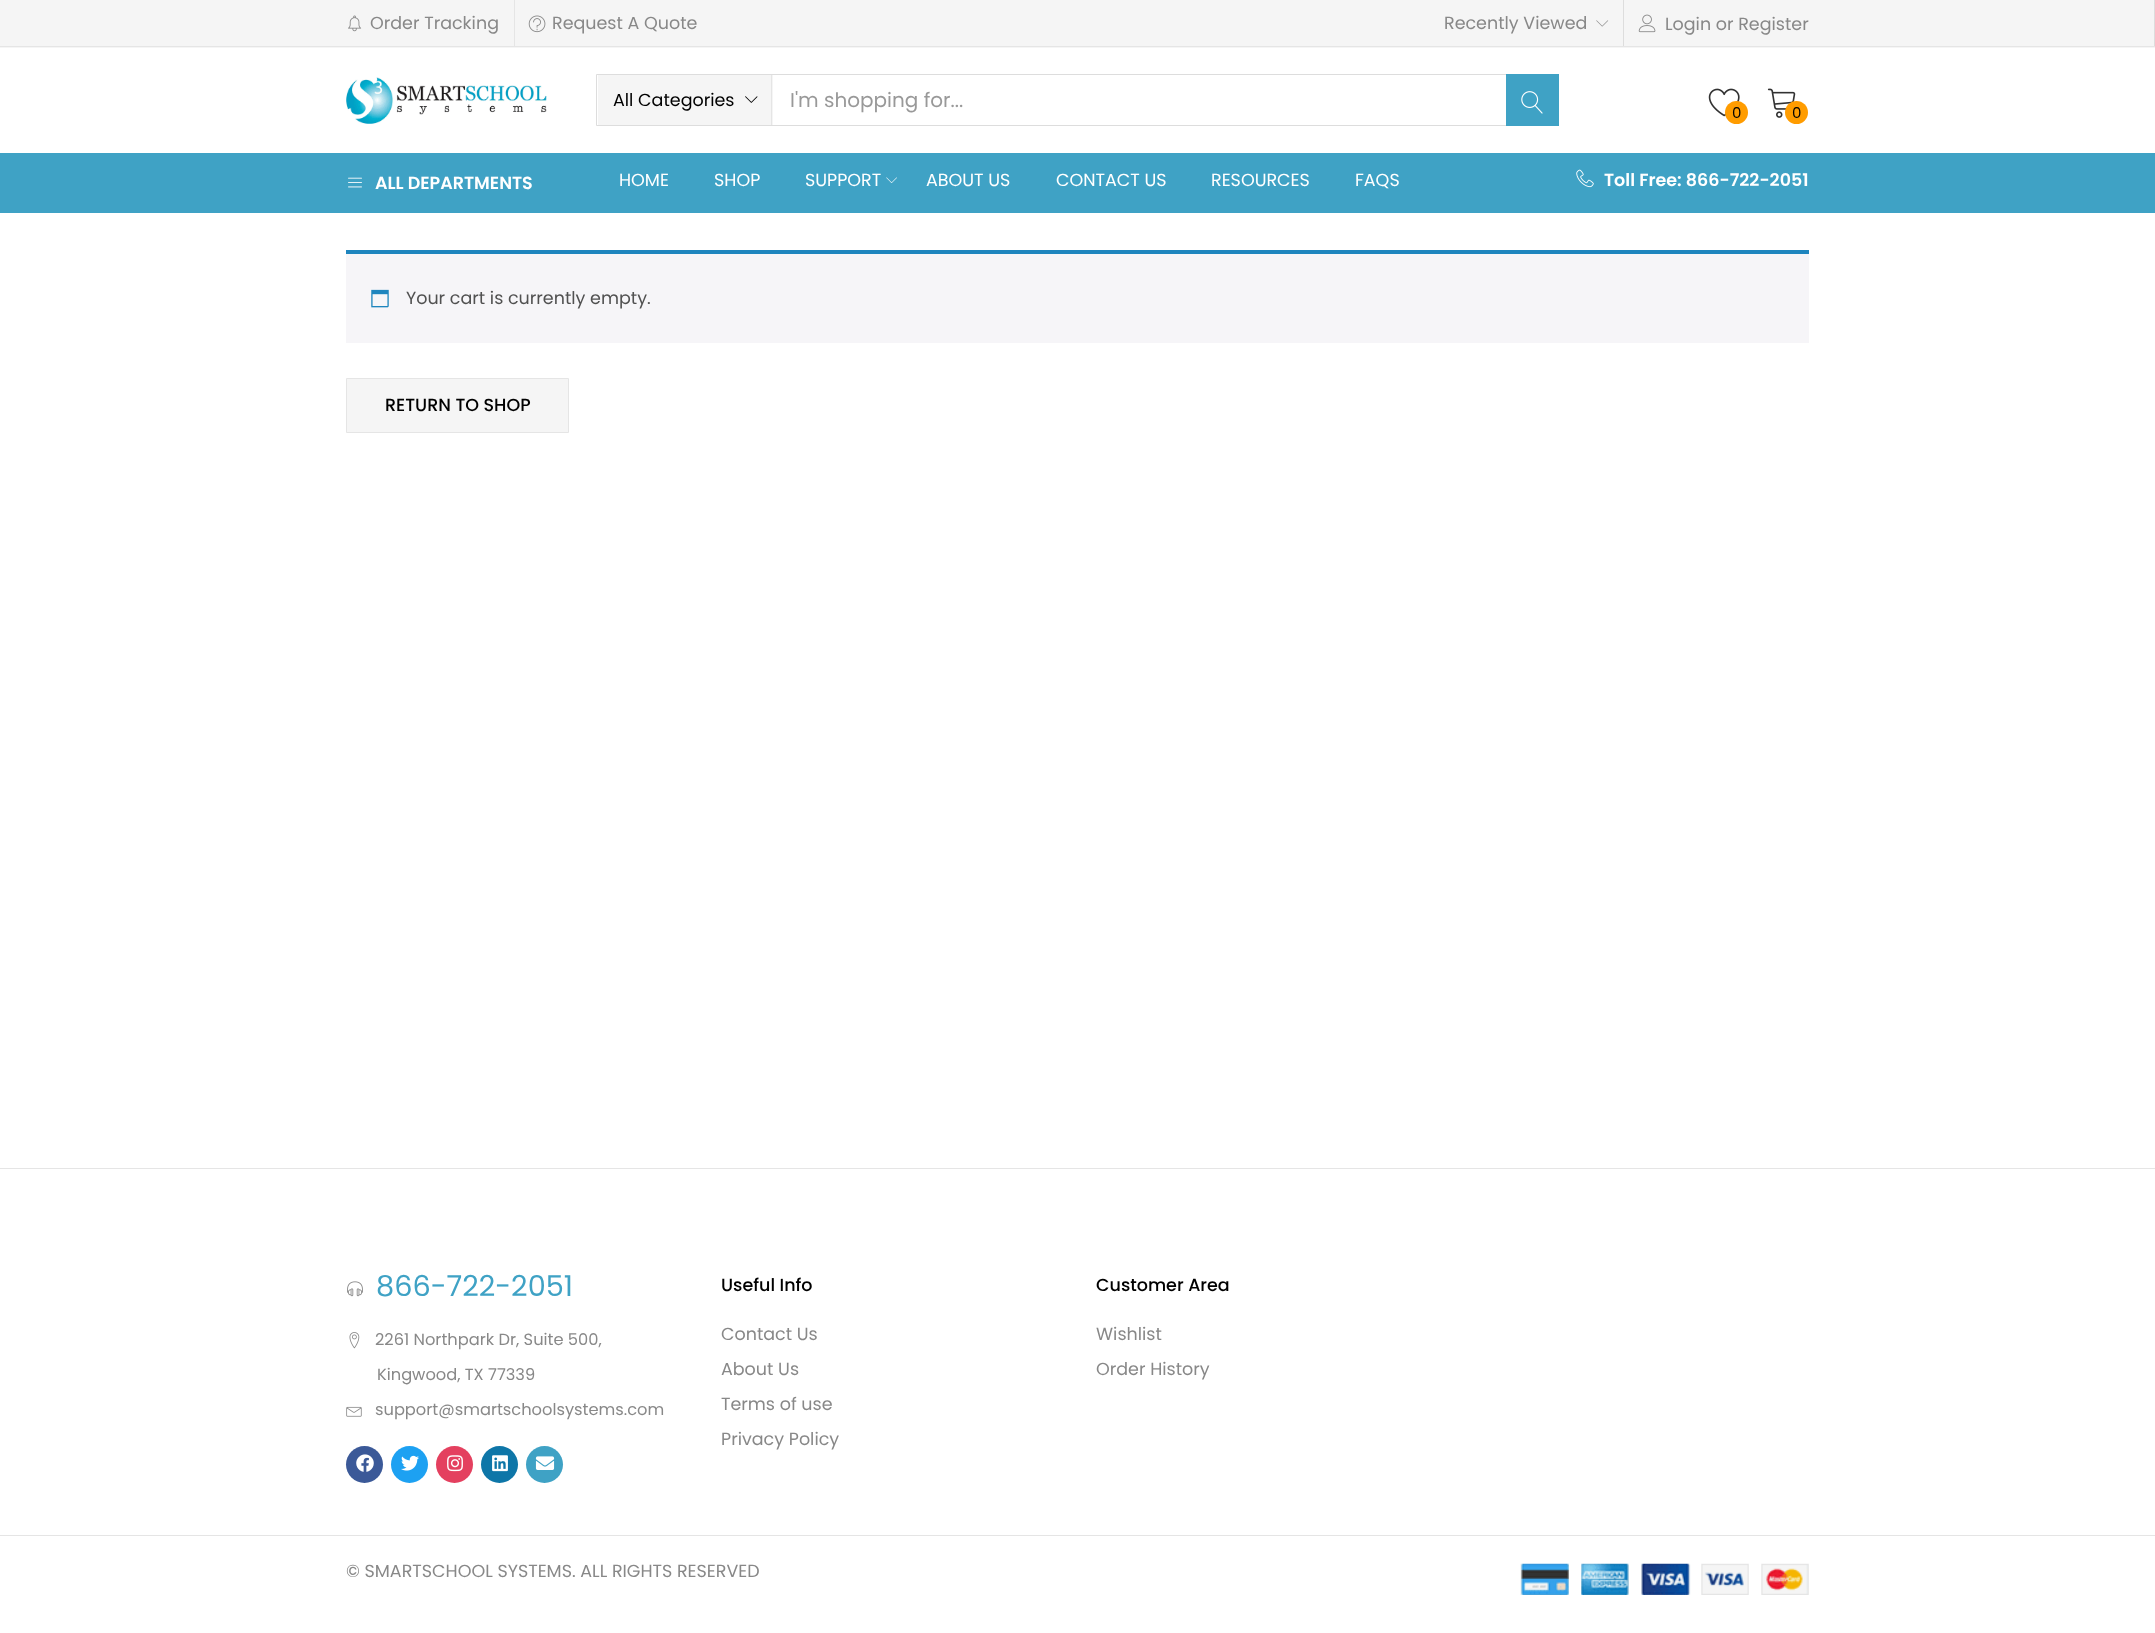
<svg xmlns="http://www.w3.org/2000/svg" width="2155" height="1633">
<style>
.a{font:17.5px Poppins;fill:#888}
.b{font:17.5px Poppins;fill:#000}
.c{font:20px Poppins;fill:#999}
.d{font:15px Poppins;fill:#000}
.e{font:600 17.5px Poppins;fill:#fff}
.f{font:17.5px Poppins;fill:#fff}
.g{font:17.5px Poppins;fill:#515151}
.h{font:500 17.5px Poppins;fill:#000}
.i{font:28.75px Poppins;fill:#3fa2c5}
.j{font:16.25px Poppins;fill:#888}
</style>
<rect width="100%" height="100%" fill="#fff"/>
<path fill="#f5f5f5" d="M0 0h2155v48H0z"/>
<path fill="#e5e5e5" d="M0 46h2155v1H0z"/>
<image href="1.png" x="348" y="15" width="14" height="17"/>
<path fill="#e5e5e5" d="M514 0h1v46H514z"/>
<image href="2.png" x="528" y="15" width="18" height="18"/>
<image href="3.png" x="1596" y="20" width="13" height="7"/>
<path fill="#ddd" d="M1623 0h1v46H1623z"/>
<path fill="#ddd" d="M2154 0h1v46H2154z"/>
<image href="4.png" x="1638" y="14" width="18" height="19"/>
<image href="5.png" x="346" y="77" width="201" height="47"/>
<path fill="none" stroke="#ddd" d="M596.5 74.5h962v51H596.5z"/>
<path fill="#f5f5f5" d="M598 75h175v50H598z"/>
<path fill="#e5e5e5" d="M771 75h1v50H771z"/>
<image href="6.png" x="745" y="96" width="13" height="7"/>
<path fill="#3fa2c5" d="M1506 74h53v52H1506z"/>
<image href="7.png" x="1521" y="91" width="22" height="23"/>
<image href="8.png" x="1708" y="88" width="32" height="29"/>
<circle fill="#ff9c00" cx="1736.5" cy="112.5" r="11.5"/>
<image href="9.png" x="1767" y="88" width="29" height="30"/>
<circle fill="#ff9c00" cx="1796.5" cy="112.5" r="11.5"/>
<path fill="#3fa2c5" d="M0 153h2155v60H0z"/>
<image href="10.png" x="348" y="177" width="14" height="11"/>
<image href="11.png" x="886" y="177" width="11" height="6"/>
<image href="12.png" x="1576" y="169" width="18" height="19"/>
<path fill="#f6f5f8" d="M346 254h1463v89H346z"/>
<path fill="#1e85be" d="M346 250h1463v4H346z"/>
<image href="13.png" x="371" y="289" width="18" height="19"/>
<path fill="#f5f5f5" stroke="#e5e5e5" d="M346.5 378.5h222v54H346.5z"/>
<path fill="#e5e5e5" d="M0 1168h2155v1H0z"/>
<image href="14.png" x="347" y="1281" width="16" height="16"/>
<image href="15.png" x="349" y="1332" width="11" height="17"/>
<image href="16.png" x="346" y="1406" width="16" height="11"/>
<circle fill="#3b5998" cx="364.5" cy="1464.5" r="18.5"/>
<image href="17.png" x="356" y="1454" width="18" height="18"/>
<circle fill="#1da1f2" cx="409.5" cy="1464.5" r="18.5"/>
<image href="18.png" x="401" y="1455" width="18" height="16"/>
<circle fill="#e4405f" cx="454.5" cy="1464.5" r="18.5"/>
<image href="19.png" x="447" y="1455" width="16" height="17"/>
<circle fill="#0e76a8" cx="499.5" cy="1464.5" r="18.5"/>
<image href="20.png" x="492" y="1455" width="16" height="17"/>
<circle fill="#3fa2c5" cx="544.5" cy="1464.5" r="18.5"/>
<image href="21.png" x="535" y="1456" width="20" height="14"/>
<path fill="#e5e5e5" d="M0 1535h2155v1H0z"/>
<image href="22.png" x="1520" y="1563" width="289" height="32"/>
<text class="a" x="370" y="29">Order Tracking</text>
<text class="a" x="552" y="29">Request A Quote</text>
<text class="a" x="1444" y="29">Recently Viewed</text>
<text class="a" x="1665" y="30">Login or Register</text>
<text class="b" x="613" y="106">All Categories</text>
<text class="c" x="790" y="107">I'm shopping for...</text>
<text class="d" x="1732" y="118">0</text>
<text class="d" x="1792" y="118">0</text>
<text class="e" x="375" y="189">ALL DEPARTMENTS</text>
<text class="f" x="619" y="186">HOME</text>
<text class="f" x="714" y="186">SHOP</text>
<text class="f" x="805" y="186">SUPPORT</text>
<text class="f" x="926" y="186">ABOUT US</text>
<text class="f" x="1056" y="186">CONTACT US</text>
<text class="f" x="1211" y="186">RESOURCES</text>
<text class="f" x="1355" y="186">FAQS</text>
<text class="e" x="1604" y="186">Toll Free: 866-722-2051</text>
<text class="g" x="406" y="304">Your cart is currently empty.</text>
<text class="h" x="385" y="411">RETURN TO SHOP</text>
<text class="i" x="376" y="1296">866-722-2051</text>
<text class="j" x="375" y="1345">2261 Northpark Dr, Suite 500,</text>
<text class="j" x="377" y="1380">Kingwood, TX 77339</text>
<text class="j" x="375" y="1415">support@smartschoolsystems.com</text>
<text class="h" x="721" y="1291">Useful Info</text>
<text class="a" x="721" y="1340">Contact Us</text>
<text class="a" x="721" y="1375">About Us</text>
<text class="a" x="721" y="1410">Terms of use</text>
<text class="a" x="721" y="1445">Privacy Policy</text>
<text class="h" x="1096" y="1291">Customer Area</text>
<text class="a" x="1096" y="1340">Wishlist</text>
<text class="a" x="1096" y="1375">Order History</text>
<text class="a" x="346" y="1577">© SMARTSCHOOL SYSTEMS. ALL RIGHTS RESERVED</text>
</svg>
